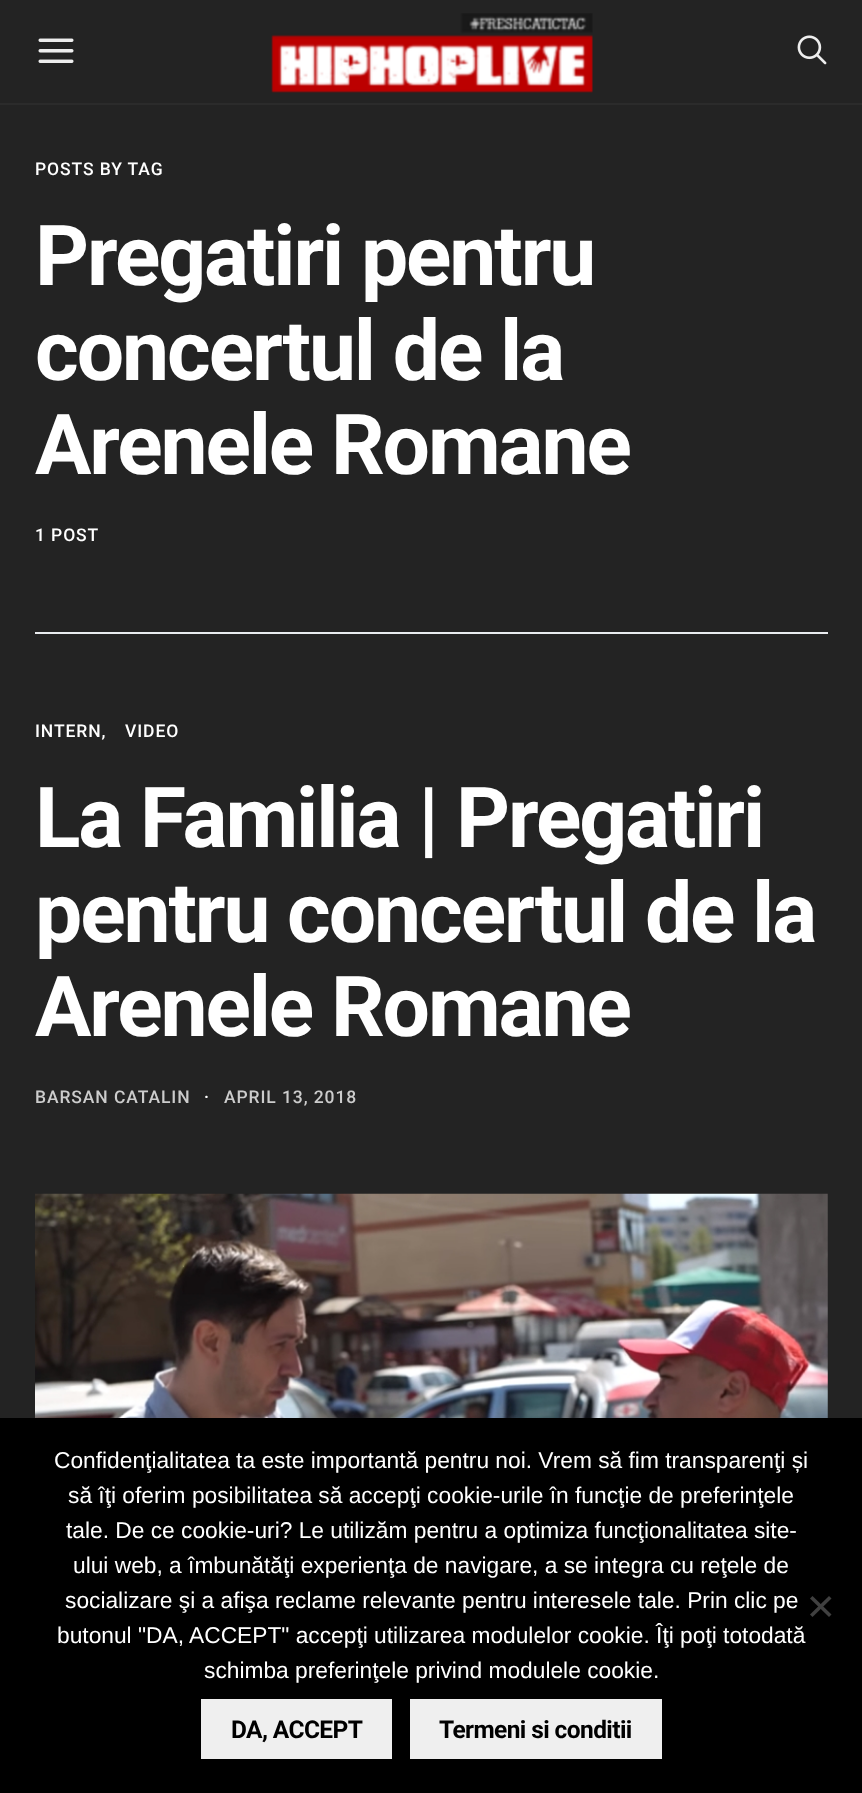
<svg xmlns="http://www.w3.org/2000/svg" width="862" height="1793">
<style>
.a{font:500 17.5px Roboto;letter-spacing:0.9px;fill:#fff}
.b{font:bold 84px Roboto;letter-spacing:-2.1px;fill:#fff}
.c{font:500 17.5px Roboto;letter-spacing:0.9px;fill:#ccc}
.d{font:22.75px Liberation Sans;fill:#fff}
.e{font:bold 24.5px Roboto;letter-spacing:-0.6px;fill:#000}
</style>
<rect width="100%" height="100%" fill="#232323"/>
<path fill="#2b2b2b" d="M0 103h862v2H0z"/>
<image href="1.png" x="38" y="38" width="36" height="25"/>
<image href="2.png" x="271" y="13" width="322" height="80"/>
<image href="3.png" x="797" y="35" width="30" height="30"/>
<path fill="#e9ecef" d="M35 632h793v2H35z"/>
<image href="4.png" x="35" y="1193" width="793" height="225"/>
<path fill="#000" d="M0 1418h862v375H0z"/>
<path fill="#404040" d="M829 1596l2.5 2.5l-19 18.5l-2.5-2.5z"/>
<path fill="#404040" d="M810 1598.5l2.5-2.5l19 18.5l-2.5 2.5z"/>
<path fill="#efefef" d="M201 1699h191v60H201z"/>
<path fill="#efefef" d="M410 1699h252v60H410z"/>
<text class="a" x="35" y="175">POSTS BY TAG</text>
<text class="b" x="35" y="285">Pregatiri pentru</text>
<text class="b" x="35" y="380">concertul de la</text>
<text class="b" x="35" y="474">Arenele Romane</text>
<text class="a" x="35" y="541">1 POST</text>
<text class="a" x="35" y="737">INTERN,</text>
<text class="a" x="125" y="737">VIDEO</text>
<text class="b" x="35" y="847">La Familia | Pregatiri</text>
<text class="b" x="35" y="942">pentru concertul de la</text>
<text class="b" x="35" y="1036">Arenele Romane</text>
<text class="c" x="35" y="1103">BARSAN CATALIN</text>
<text class="a" x="204" y="1103">·</text>
<text class="c" x="224" y="1103">APRIL 13, 2018</text>
<text class="d" x="54" y="1468">Confidenţialitatea ta este importantă pentru noi. Vrem să fim transparenţi și</text>
<text class="d" x="68" y="1503">să îţi oferim posibilitatea să accepţi cookie-urile în funcţie de preferinţele</text>
<text class="d" x="66" y="1538">tale. De ce cookie-uri? Le utilizăm pentru a optimiza funcţionalitatea site-</text>
<text class="d" x="73" y="1573">ului web, a îmbunătăţi experienţa de navigare, a se integra cu reţele de</text>
<text class="d" x="65" y="1608">socializare şi a afişa reclame relevante pentru interesele tale. Prin clic pe</text>
<text class="d" x="57" y="1643">butonul "DA, ACCEPT" accepţi utilizarea modulelor cookie. Îţi poţi totodată</text>
<text class="d" x="204" y="1678">schimba preferinţele privind modulele cookie.</text>
<text class="e" x="231" y="1738">DA, ACCEPT</text>
<text class="e" x="439" y="1738">Termeni si conditii</text>
</svg>
